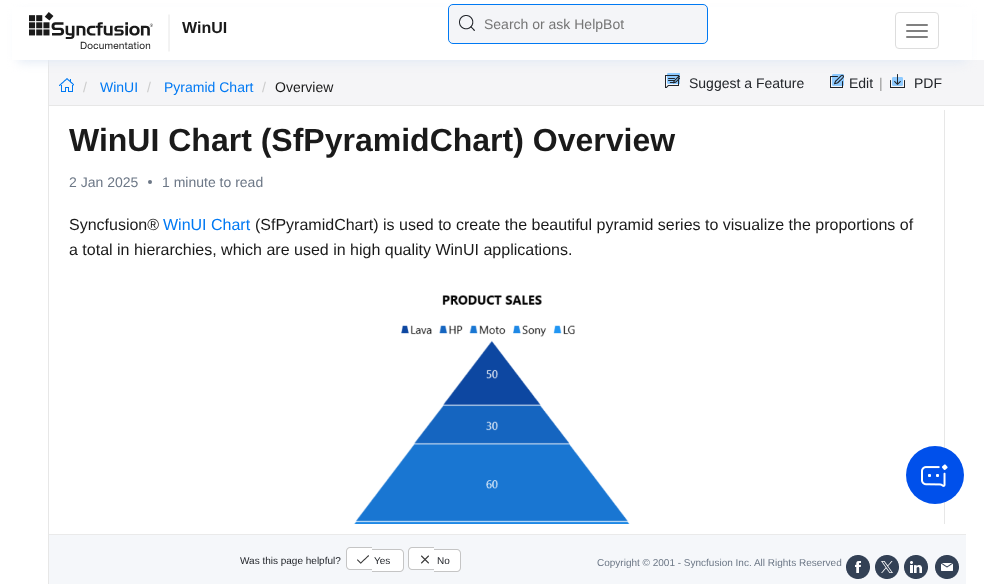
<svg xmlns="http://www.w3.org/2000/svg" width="984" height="584">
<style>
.a{font:bold 16px Liberation Sans;fill:#1a1a1a}
.b{font:14px Liberation Sans;fill:#757575}
.c{font:14px Liberation Sans;fill:#ccc}
.d{font:14px Liberation Sans;fill:#0079f3}
.e{font:14px Liberation Sans;fill:#1a1a1a}
.f{font:14px Liberation Sans;fill:#22252a}
.g{font:14px Liberation Sans;fill:#979797}
.h{font:bold 32px Liberation Sans;fill:#1a1a1a}
.i{font:14px Liberation Sans;fill:#6c7786}
.j{font:16px Liberation Sans;fill:#1a1a1a}
.k{font:16px Liberation Sans;fill:#0079f3}
.l{font:10px Liberation Sans;fill:#22252a}
.m{font:10px Liberation Sans;fill:#6c7786}
</style>
<rect width="100%" height="100%" fill="#fff"/>
<path fill="#f5f5f7" d="M49 60h935v45H49z"/>
<image href="3.png" x="59" y="78" width="15" height="14"/>
<image href="4.png" x="665" y="73" width="15" height="15"/>
<image href="5.png" x="830" y="74" width="14" height="14"/>
<image href="6.png" x="890" y="74" width="15" height="14"/>
<path fill="#e7e7e7" d="M48 60h1v524H48z"/>
<path fill="#e2eaf5" filter="blur(5.5px)" d="M18 14h948v48H18z"/>
<path fill="#fff" d="M12 7h960v53H12z"/>
<image href="1.png" x="29" y="12" width="141" height="40"/>
<rect fill="#f4f5f8" x="448" y="4" width="260" height="40" rx="5"/>
<image href="2.png" x="459" y="15" width="16" height="16"/>
<rect fill="none" stroke="#0079f3" x="448.5" y="4.5" width="259" height="39" rx="4.5"/>
<rect fill="none" stroke="#ddd" x="895.5" y="12.5" width="43" height="36" rx="3.5"/>
<rect fill="#808080" x="906" y="24" width="22" height="2" rx="1"/>
<rect fill="#808080" x="906" y="30" width="22" height="2" rx="1"/>
<rect fill="#808080" x="906" y="36" width="22" height="2" rx="1"/>
<path fill="#e7e7e7" d="M49 105h935v1H49z"/>
<path fill="#e7e7e7" d="M944 110h1v414H944z"/>
<circle fill="#6c7786" cx="150" cy="182" r="2"/>
<image href="7.png" x="353" y="295" width="277" height="229"/>
<circle fill="#0050eb" cx="935" cy="475" r="29"/>
<image href="8.png" x="921" y="464" width="27" height="23"/>
<path fill="#f5f7fa" d="M49 535h917v49H49z"/>
<path fill="#eaeaea" d="M49 534h917v1H49z"/>
<path fill="#fff" d="M350 547h22v23h-22c-2 0-4-2-4-4v-15c0-2 2-4 4-4z"/>
<path fill="#c5c5c5" fill-rule="evenodd" d="M350 547h22v23h-22c-2 0-4-2-4-4v-15c0-2 2-4 4-4zm0 1h22v21h-22c-1.5 0-3-1.5-3-3v-15c0-1.5 1.5-3 3-3z"/>
<path fill="#fff" d="M372 549h28c2 0 4 2 4 4v15c0 2-2 4-4 4h-28z"/>
<path fill="#c5c5c5" fill-rule="evenodd" d="M372 549h28c2 0 4 2 4 4v15c0 2-2 4-4 4h-28zm0 1h28c1.5 0 3 1.5 3 3v15c0 1.5-1.5 3-3 3h-28z"/>
<image href="9.png" x="357" y="555" width="12" height="9"/>
<path fill="#fff" d="M412 547h22v23h-22c-2 0-4-2-4-4v-15c0-2 2-4 4-4z"/>
<path fill="#c5c5c5" fill-rule="evenodd" d="M412 547h22v23h-22c-2 0-4-2-4-4v-15c0-2 2-4 4-4zm0 1h22v21h-22c-1.5 0-3-1.5-3-3v-15c0-1.5 1.5-3 3-3z"/>
<path fill="#fff" d="M434 549h23c2 0 4 2 4 4v15c0 2-2 4-4 4h-23z"/>
<path fill="#c5c5c5" fill-rule="evenodd" d="M434 549h23c2 0 4 2 4 4v15c0 2-2 4-4 4h-23zm0 1h23c1.5 0 3 1.5 3 3v15c0 1.5-1.5 3-3 3h-23z"/>
<image href="10.png" x="421" y="555" width="8" height="9"/>
<image href="11.png" x="846" y="555" width="24" height="24"/>
<image href="12.png" x="875" y="555" width="24" height="24"/>
<image href="13.png" x="904" y="555" width="24" height="24"/>
<image href="14.png" x="935" y="555" width="24" height="24"/>
<text class="a" x="182" y="33">WinUI</text>
<text class="b" x="484" y="29">Search or ask HelpBot</text>
<text class="c" x="83" y="92">/</text>
<text class="d" x="100" y="92">WinUI</text>
<text class="c" x="147" y="92">/</text>
<text class="d" x="164" y="92">Pyramid Chart</text>
<text class="c" x="262" y="92">/</text>
<text class="e" x="275" y="92">Overview</text>
<text class="f" x="689" y="88">Suggest a Feature</text>
<text class="f" x="849" y="88">Edit</text>
<text class="g" x="879" y="88">|</text>
<text class="f" x="914" y="88">PDF</text>
<text class="h" x="69" y="151">WinUI Chart (SfPyramidChart) Overview</text>
<text class="i" x="69" y="187">2 Jan 2025</text>
<text class="i" x="162" y="187">1 minute to read</text>
<text class="j" x="69" y="230">Syncfusion®</text>
<text class="k" x="163" y="230">WinUI Chart</text>
<text class="j" x="255" y="230">(SfPyramidChart) is used to create the beautiful pyramid series to visualize the proportions of</text>
<text class="j" x="69" y="255">a total in hierarchies, which are used in high quality WinUI applications.</text>
<text class="l" x="240" y="564">Was this page helpful?</text>
<text class="l" x="374" y="564">Yes</text>
<text class="l" x="437" y="564">No</text>
<text class="m" x="597" y="566">Copyright © 2001 - Syncfusion Inc. All Rights Reserved</text>
</svg>
